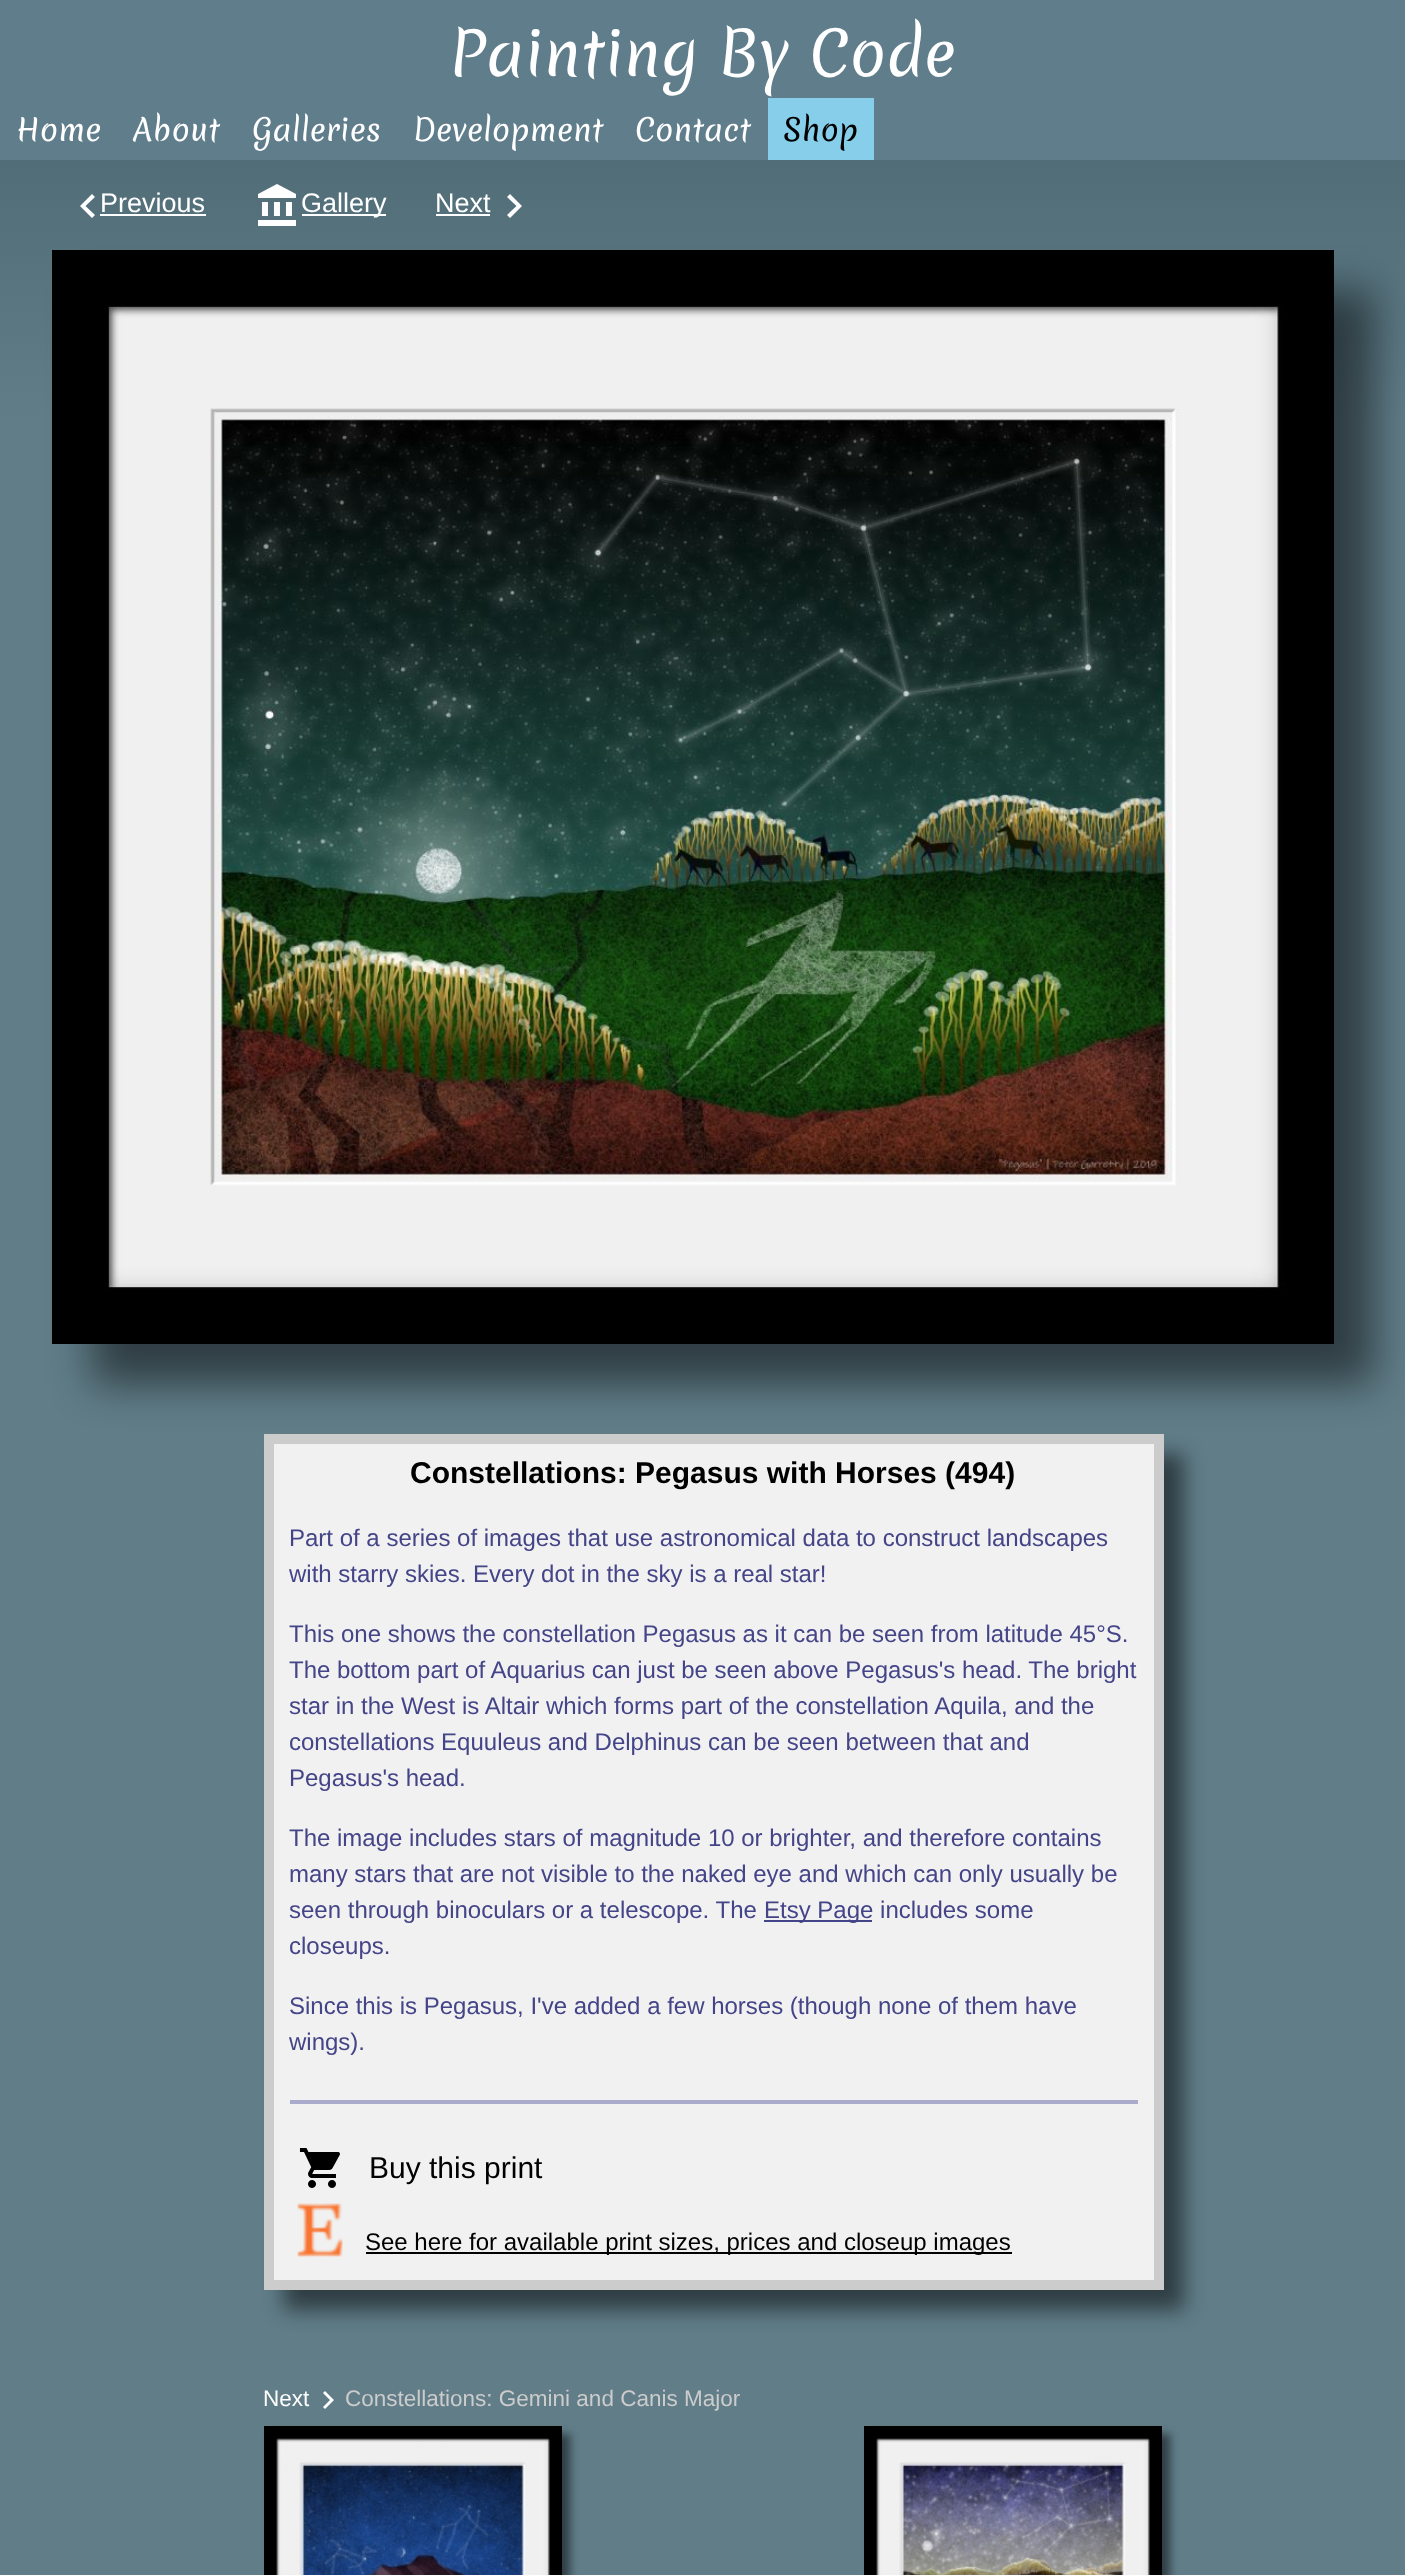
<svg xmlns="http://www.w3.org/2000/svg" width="1405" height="2575">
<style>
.a{font:60px Merienda;fill:#fff}
.b{font:30px Merienda;fill:#fff}
.c{font:30px Merienda;fill:#000}
.d{font:27px Liberation Sans;fill:#fff}
.e{font:bold 30px Liberation Sans;fill:#000}
.f{font:24px Liberation Sans;fill:#448}
.g{font:30px Liberation Sans;fill:#000}
.h{font:24px Liberation Sans;fill:#000}
.i{font:22.5px Liberation Sans;fill:#fff}
.j{font:22.5px Liberation Sans;fill:#ccc}
</style>
<defs>
<linearGradient id="g1" gradientUnits="userSpaceOnUse" x1="703" y1="160" x2="703" y2="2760"><stop offset="0" stop-color="#506d78"/><stop offset="0.1" stop-color="#607d88"/></linearGradient>
</defs>
<rect width="100%" height="100%" fill="#607d8b"/>
<path fill="#87ceeb" d="M768 98h106v62H768z"/>
<path fill="url(#g1)" d="M0 160h1405v2415H0z"/>
<path fill="#fff" d="M95 215l-3 3l-12-12l12-12l3 3l-9.5 9z"/>
<path fill="#fff" d="M100 214h106v2H100z"/>
<image href="1.png" x="258" y="184" width="38" height="42"/>
<path fill="#fff" d="M302 214h84v2H302z"/>
<path fill="#fff" d="M436 214h54v2H436z"/>
<path fill="#fff" d="M507 215l9.5-9l-9.5-9l3-3l12 12l-12 12z"/>
<path fill="#00000080" filter="blur(20px)" d="M92 290h1282v1094H92z"/>
<image href="2.png" x="52" y="250" width="1282" height="1094"/>
<path fill="#00000080" filter="blur(10px)" d="M284 1454h900v856H284z"/>
<path fill="#f1f1f1" stroke="#ccc" stroke-width="10" d="M269 1439h890v846H269z"/>
<path fill="#448" d="M764 1920h108v2H764z"/>
<path fill="#aac" d="M290 2100h848v4H290z"/>
<image href="3.png" x="299" y="2148" width="41" height="40"/>
<image href="4.png" x="297" y="2203" width="46" height="54"/>
<path fill="#000" d="M366 2252h646v2H366z"/>
<path fill="#fff" d="M323 2407l7-7l-7-7l2-2l9 9l-9 9z"/>
<path fill="#00000080" filter="blur(4px)" d="M272 2434h298v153H272z"/>
<path fill="#00000080" filter="blur(4px)" d="M872 2434h298v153H872z"/>
<image href="5.png" x="864" y="2426" width="298" height="149"/>
<image href="6.png" x="264" y="2426" width="298" height="149"/>
<text class="a" x="449" y="76">Painting By Code</text>
<text class="b" x="16" y="141">Home</text>
<text class="b" x="133" y="141">About</text>
<text class="b" x="252" y="141">Galleries</text>
<text class="b" x="413" y="141">Development</text>
<text class="b" x="635" y="141">Contact</text>
<text class="c" x="783" y="141">Shop</text>
<text class="d" x="100" y="212">Previous</text>
<text class="d" x="301" y="212">Gallery</text>
<text class="d" x="435" y="212">Next</text>
<text class="e" x="410" y="1483">Constellations: Pegasus with Horses (494)</text>
<text class="f" x="289" y="1546">Part of a series of images that use astronomical data to construct landscapes</text>
<text class="f" x="289" y="1582">with starry skies. Every dot in the sky is a real star!</text>
<text class="f" x="289" y="1642">This one shows the constellation Pegasus as it can be seen from latitude 45°S.</text>
<text class="f" x="289" y="1678">The bottom part of Aquarius can just be seen above Pegasus's head. The bright</text>
<text class="f" x="289" y="1714">star in the West is Altair which forms part of the constellation Aquila, and the</text>
<text class="f" x="289" y="1750">constellations Equuleus and Delphinus can be seen between that and</text>
<text class="f" x="289" y="1786">Pegasus's head.</text>
<text class="f" x="289" y="1846">The image includes stars of magnitude 10 or brighter, and therefore contains</text>
<text class="f" x="289" y="1882">many stars that are not visible to the naked eye and which can only usually be</text>
<text class="f" x="289" y="1918">seen through binoculars or a telescope. The</text>
<text class="f" x="764" y="1918">Etsy Page includes some</text>
<text class="f" x="289" y="1954">closeups.</text>
<text class="f" x="289" y="2014">Since this is Pegasus, I've added a few horses (though none of them have</text>
<text class="f" x="289" y="2050">wings).</text>
<text class="g" x="369" y="2178">Buy this print</text>
<text class="h" x="365" y="2250">See here for available print sizes, prices and closeup images</text>
<text class="i" x="263" y="2406">Next</text>
<text class="j" x="345" y="2406">Constellations: Gemini and Canis Major</text>
</svg>
